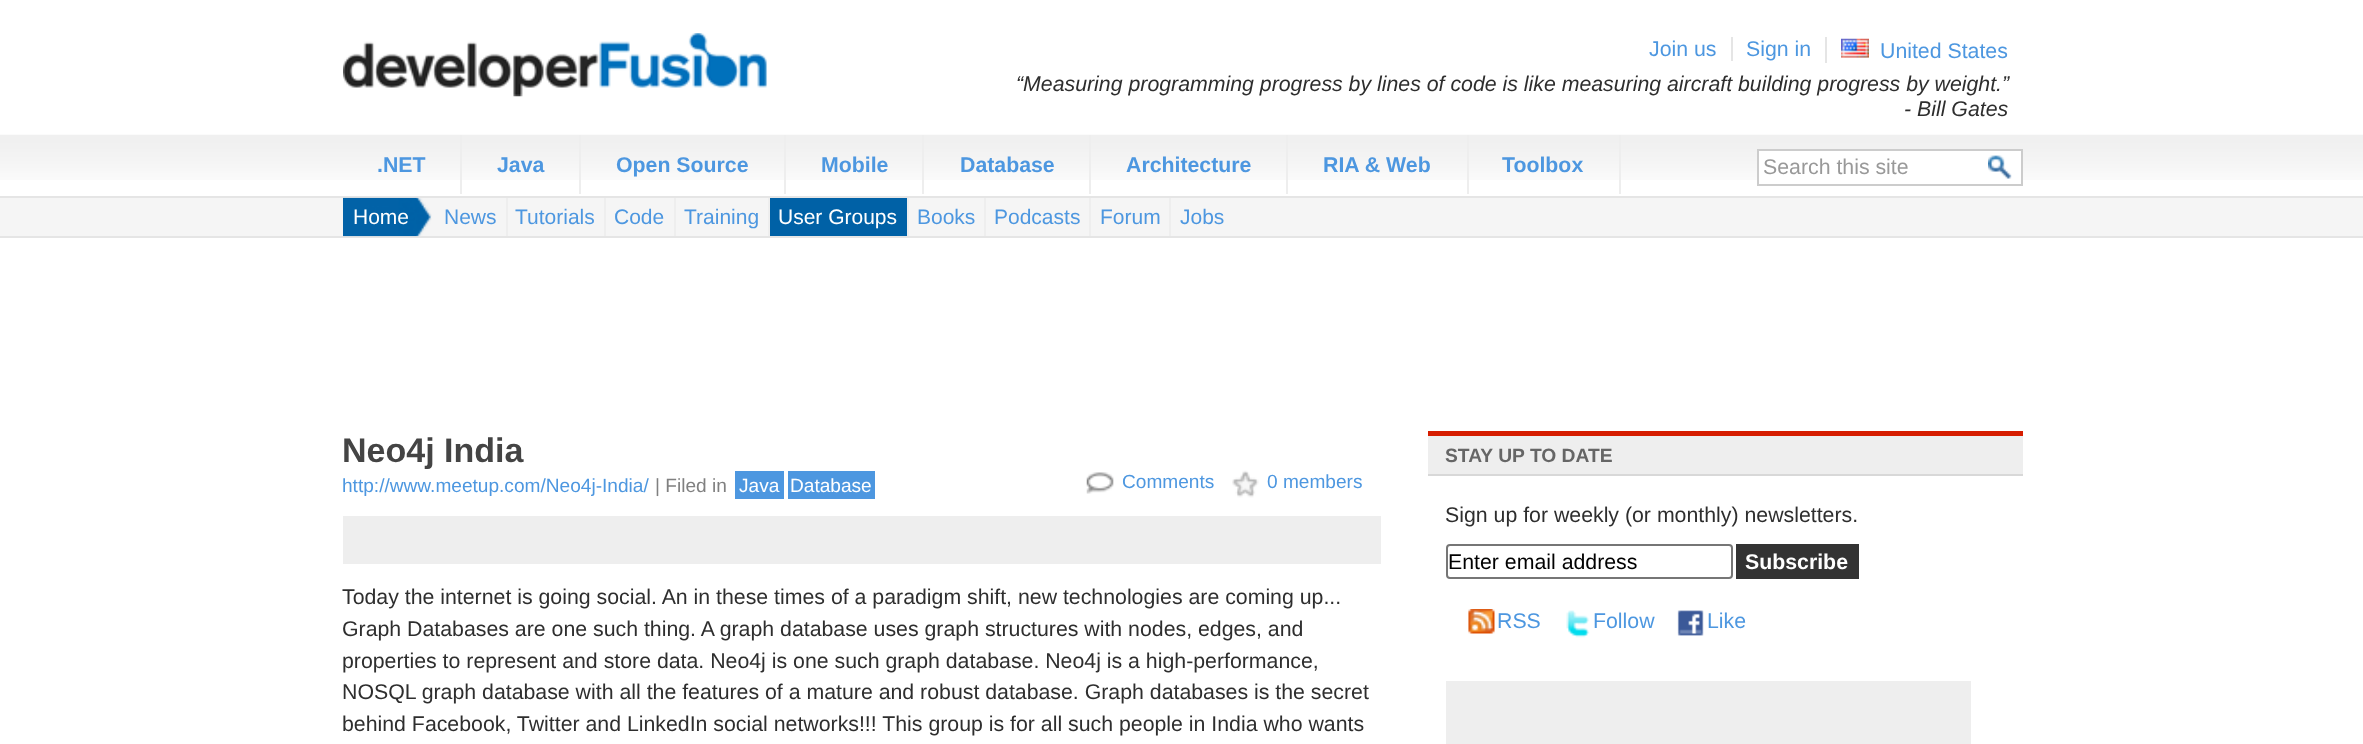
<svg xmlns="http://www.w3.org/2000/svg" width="2363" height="744">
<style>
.a{font:21.3px Liberation Sans;fill:#4d97e0}
.b{font:italic 21.3px Liberation Sans;fill:#2e2e2e}
.c{font:bold 21.3px Liberation Sans;fill:#4d97e0}
.d{font:21.3px Liberation Sans;fill:#999}
.e{font:21px Liberation Sans;fill:#fff}
.f{font:21px Liberation Sans;fill:#4d97e0}
.g{font:bold 34px Liberation Sans;fill:#444}
.h{font:19.1px Liberation Sans;fill:#4d97e0}
.i{font:19.1px Liberation Sans;fill:#808080}
.j{font:19.1px Liberation Sans;fill:#fff}
.k{font:21.3px Liberation Sans;fill:#2e2e2e}
.l{font:bold 19.25px Liberation Sans;fill:#666}
.m{font:21.3px Liberation Sans;fill:#000}
.n{font:bold 21.3px Liberation Sans;fill:#fff}
</style>
<rect width="100%" height="100%" fill="#fff"/>
<image href="1.png" x="343" y="33" width="424" height="64"/>
<path fill="#e5e5e5" d="M1731 37h2v24H1731z"/>
<path fill="#e5e5e5" d="M1825 37h2v26H1825z"/>
<image href="2.png" x="1841" y="38" width="28" height="20"/>
<image href="3.png" x="0" y="134" width="2363" height="46"/>
<path fill="#e5e5e5" d="M0 196h2363v2H0z"/>
<path fill="#eee" d="M460 135h2v59H460z"/>
<path fill="#eee" d="M579 135h2v59H579z"/>
<path fill="#eee" d="M784 135h2v59H784z"/>
<path fill="#eee" d="M922 135h2v59H922z"/>
<path fill="#eee" d="M1089 135h2v59H1089z"/>
<path fill="#eee" d="M1286 135h2v59H1286z"/>
<path fill="#eee" d="M1467 135h2v59H1467z"/>
<path fill="#eee" d="M1619 135h2v59H1619z"/>
<path fill="#fff" d="M1759 151h262v29H1759z"/>
<path fill="none" stroke="#ccc" stroke-width="2" d="M1758 150h264v35H1758z"/>
<image href="4.png" x="1988" y="155" width="24" height="24"/>
<path fill="#f5f5f5" d="M0 198h2363v38H0z"/>
<path fill="#e5e5e5" d="M0 236h2363v2H0z"/>
<image href="5.png" x="343" y="197" width="89" height="40"/>
<path fill="#eee" d="M506 198h2v38H506z"/>
<path fill="#eee" d="M604 198h2v38H604z"/>
<path fill="#eee" d="M674 198h2v38H674z"/>
<path fill="#eee" d="M768 198h2v38H768z"/>
<path fill="#0061a6" d="M770 198h137v38H770z"/>
<path fill="#eee" d="M907 198h2v38H907z"/>
<path fill="#eee" d="M984 198h2v38H984z"/>
<path fill="#eee" d="M1089 198h2v38H1089z"/>
<path fill="#eee" d="M1169 198h2v38H1169z"/>
<path fill="#4d97e0" d="M735 471h49v28H735z"/>
<path fill="#4d97e0" d="M788 471h87v28H788z"/>
<image href="6.png" x="1086" y="472" width="28" height="22"/>
<image href="7.png" x="1232" y="470" width="27" height="28"/>
<path fill="#eee" d="M343 516h1038v48H343z"/>
<path fill="#d61d00" d="M1428 431h595v5H1428z"/>
<path fill="#eee" d="M1428 436h595v38H1428z"/>
<path fill="#d8d8d8" d="M1428 474h595v2H1428z"/>
<rect fill="none" stroke="#767676" stroke-width="2" x="1447" y="545" width="285" height="33" rx="3"/>
<path fill="#333" d="M1736 544h123v35H1736z"/>
<image href="8.png" x="1468" y="609" width="27" height="25"/>
<image href="9.png" x="1566" y="610" width="24" height="28"/>
<image href="10.png" x="1677" y="610" width="27" height="26"/>
<path fill="#eee" d="M1446 681h525v63H1446z"/>
<text class="a" x="1649" y="56">Join us</text>
<text class="a" x="1746" y="56">Sign in</text>
<text class="a" x="1880" y="58">United States</text>
<text class="b" x="1016" y="91">“Measuring programming progress by lines of code is like measuring aircraft building progress by weight.”</text>
<text class="b" x="1904" y="116">- Bill Gates</text>
<text class="c" x="377" y="172">.NET</text>
<text class="c" x="497" y="172">Java</text>
<text class="c" x="616" y="172">Open Source</text>
<text class="c" x="821" y="172">Mobile</text>
<text class="c" x="960" y="172">Database</text>
<text class="c" x="1126" y="172">Architecture</text>
<text class="c" x="1323" y="172">RIA &amp; Web</text>
<text class="c" x="1502" y="172">Toolbox</text>
<text class="d" x="1763" y="174">Search this site</text>
<text class="e" x="353" y="224">Home</text>
<text class="f" x="444" y="224">News</text>
<text class="f" x="515" y="224">Tutorials</text>
<text class="f" x="614" y="224">Code</text>
<text class="f" x="684" y="224">Training</text>
<text class="e" x="778" y="224">User Groups</text>
<text class="f" x="917" y="224">Books</text>
<text class="f" x="994" y="224">Podcasts</text>
<text class="f" x="1100" y="224">Forum</text>
<text class="f" x="1180" y="224">Jobs</text>
<text class="g" x="342" y="462">Neo4j India</text>
<text class="h" x="342" y="492">http://www.meetup.com/Neo4j-India/</text>
<text class="i" x="655" y="492">| Filed in</text>
<text class="j" x="739" y="492">Java</text>
<text class="j" x="790" y="492">Database</text>
<text class="h" x="1122" y="488">Comments</text>
<text class="h" x="1267" y="488">0 members</text>
<text class="k" x="342" y="604">Today the internet is going social. An in these times of a paradigm shift, new technologies are coming up...</text>
<text class="k" x="342" y="636">Graph Databases are one such thing. A graph database uses graph structures with nodes, edges, and</text>
<text class="k" x="342" y="668">properties to represent and store data. Neo4j is one such graph database. Neo4j is a high-performance,</text>
<text class="k" x="342" y="699">NOSQL graph database with all the features of a mature and robust database. Graph databases is the secret</text>
<text class="k" x="342" y="731">behind Facebook, Twitter and LinkedIn social networks!!! This group is for all such people in India who wants</text>
<text class="l" x="1445" y="462">STAY UP TO DATE</text>
<text class="k" x="1445" y="522">Sign up for weekly (or monthly) newsletters.</text>
<text class="m" x="1448" y="569">Enter email address</text>
<text class="n" x="1745" y="569">Subscribe</text>
<text class="a" x="1497" y="628">RSS</text>
<text class="a" x="1593" y="628">Follow</text>
<text class="a" x="1707" y="628">Like</text>
</svg>
